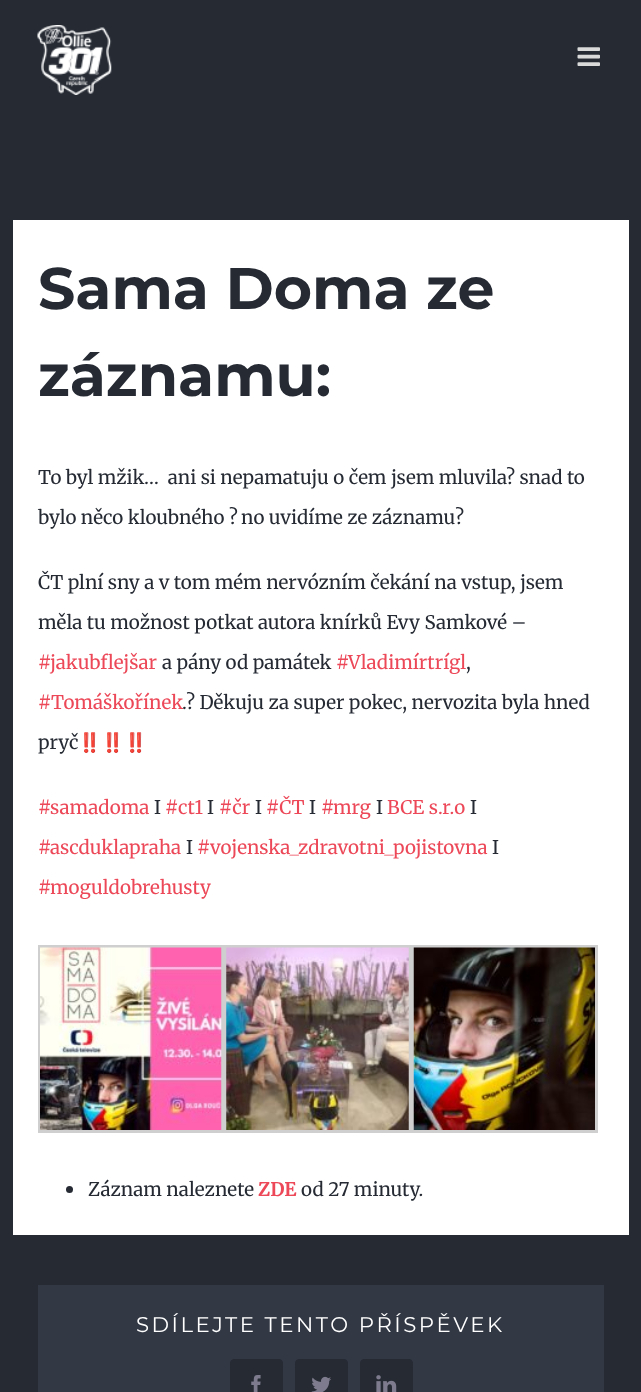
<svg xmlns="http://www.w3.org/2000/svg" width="641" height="1392">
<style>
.a{font:bold 58.5px Montserrat;fill:#252a33}
.b{font:18.75px Merriweather;fill:#252a33}
.c{font:18.75px Merriweather;fill:#ec4858}
.d{font:18.75px Noto Color Emoji;fill:#252a33}
.e{font:bold 18.75px Merriweather;fill:#ec4858}
.f{font:21.25px Montserrat;letter-spacing:2.5px;fill:#fff}
</style>
<rect width="100%" height="100%" fill="#252a33"/>
<image href="1.png" x="37" y="25" width="75" height="70"/>
<image href="2.png" x="577" y="47" width="23" height="19"/>
<path fill="#fff" d="M13 220h616v1015H13z"/>
<path fill="none" stroke="#cfcfcf" stroke-width="3" d="M39.5 946.5h183v185H39.5z"/>
<image href="3.png" x="40" y="947" width="182" height="183"/>
<path fill="none" stroke="#cfcfcf" stroke-width="3" d="M225.5 946.5h184v185H225.5z"/>
<image href="4.png" x="226" y="947" width="183" height="183"/>
<path fill="none" stroke="#cfcfcf" stroke-width="3" d="M412.5 946.5h184v185H412.5z"/>
<image href="5.png" x="413" y="947" width="182" height="183"/>
<circle fill="#252a33" cx="69.5" cy="1189.5" r="3.5"/>
<path fill="#323844" d="M38 1285h566v107H38z"/>
<rect fill="#252a33" stroke="#252a33" x="230.5" y="1359.5" width="52" height="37" rx="3.5"/>
<image href="6.png" x="251" y="1375" width="10" height="17"/>
<rect fill="#252a33" stroke="#252a33" x="295.5" y="1359.5" width="52" height="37" rx="3.5"/>
<image href="7.png" x="311" y="1376" width="20" height="16"/>
<rect fill="#252a33" stroke="#252a33" x="360.5" y="1359.5" width="52" height="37" rx="3.5"/>
<image href="8.png" x="376" y="1375" width="21" height="17"/>
<text class="a" x="38" y="309">Sama Doma ze</text>
<text class="a" x="38" y="396">záznamu:</text>
<text class="b" xml:space="preserve" x="38" y="484">To byl mžik…  ani si nepamatuju o čem jsem mluvila? snad to</text>
<text class="b" x="38" y="524">bylo něco kloubného ?</text>
<text class="b" x="241" y="524">no uvidíme ze záznamu</text>
<text class="b" x="455" y="524">?</text>
<text class="b" x="38" y="589">ČT plní sny a v tom mém nervózním čekání na vstup, jsem</text>
<text class="b" x="38" y="629">měla tu možnost potkat autora knírků Evy Samkové –</text>
<text class="c" x="38" y="669">#</text>
<text class="c" x="50" y="669">jakubflejšar</text>
<text class="b" x="162" y="669">a pány od památek</text>
<text class="c" x="336" y="669">#</text>
<text class="c" x="348" y="669">Vladimírtrígl</text>
<text class="b" x="466" y="669">,</text>
<text class="c" x="38" y="709">#</text>
<text class="c" x="51" y="709">Tomáškořínek</text>
<text class="b" x="182" y="709">.</text>
<text class="b" x="186" y="709">? Děkuju za super pokec, nervozita byla hned</text>
<text class="b" x="38" y="749">pryč</text>
<text class="d" x="78" y="749">‼️‼️‼️</text>
<text class="c" x="38" y="814">#</text>
<text class="c" x="50" y="814">samadoma</text>
<text class="b" x="154" y="814">I</text>
<text class="c" x="165" y="814">#</text>
<text class="c" x="178" y="814">ct1</text>
<text class="b" x="207" y="814">I</text>
<text class="c" x="219" y="814">#čr</text>
<text class="b" x="255" y="814">I</text>
<text class="c" x="266" y="814">#ČT</text>
<text class="b" x="309" y="814">I</text>
<text class="c" x="321" y="814">#</text>
<text class="c" x="333" y="814">mrg</text>
<text class="b" x="376" y="814">I</text>
<text class="c" x="387" y="814">BCE s.r.o</text>
<text class="b" x="470" y="814">I</text>
<text class="c" x="38" y="854">#</text>
<text class="c" x="50" y="854">ascduklapraha</text>
<text class="b" x="186" y="854">I</text>
<text class="c" x="197" y="854">#vojenska_zdravotni_pojistovna</text>
<text class="b" x="492" y="854">I</text>
<text class="c" x="38" y="894">#</text>
<text class="c" x="50" y="894">moguldobrehusty</text>
<text class="b" x="88" y="1196">Záznam naleznete</text>
<text class="e" x="258" y="1196">ZDE</text>
<text class="b" x="301" y="1196">od 27 minuty.</text>
<text class="f" x="136" y="1332">SDÍLEJTE TENTO PŘÍSPĚVEK</text>
</svg>
